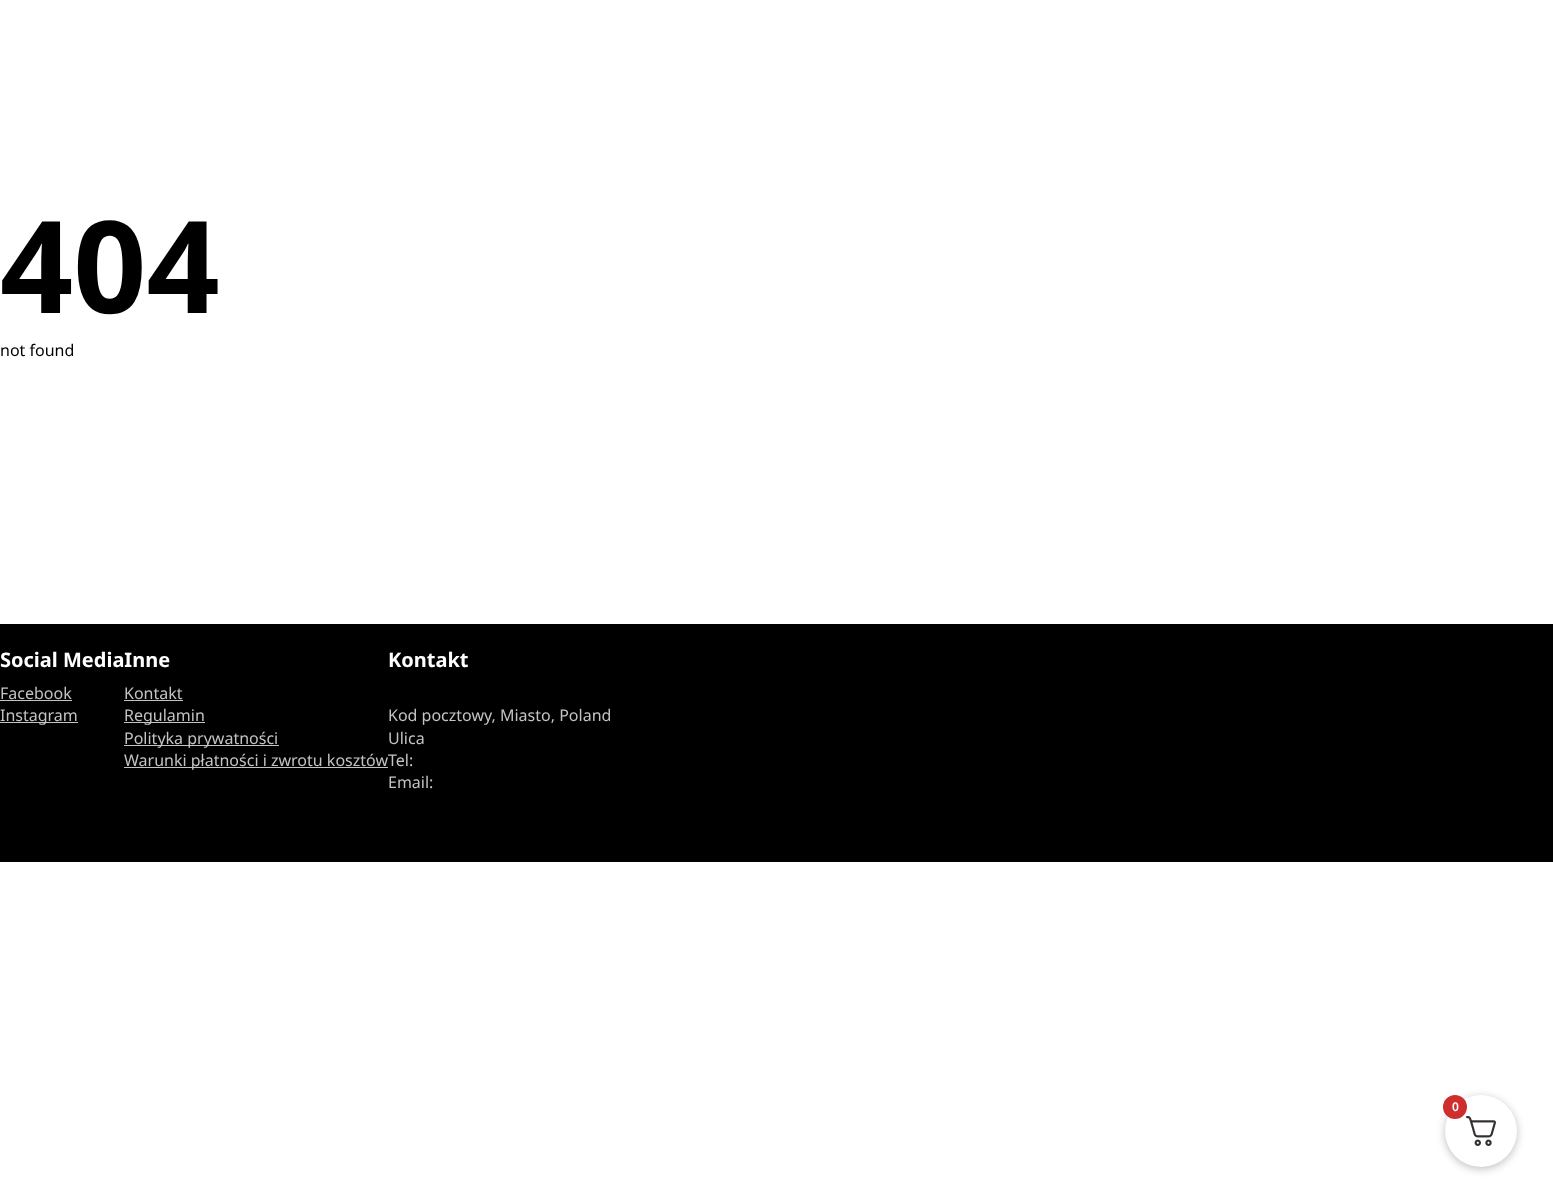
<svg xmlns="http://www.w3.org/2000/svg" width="1553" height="1203">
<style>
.a{font:bold 128px Noto Sans;fill:#000}
.b{font:16px Noto Sans;fill:#000}
.c{font:bold 20px Noto Sans;fill:#fff}
.d{font:16px Noto Sans;fill:#c3c3c3}
.e{font:600 12px Noto Sans;fill:#fff}
</style>
<rect width="100%" height="100%" fill="#fff"/>
<path fill="#000" d="M0 624h1553v238H0z"/>
<path fill="#c3c3c3" d="M0 700h72v1H0z"/>
<path fill="#c3c3c3" d="M0 722h78v1H0z"/>
<path fill="#c3c3c3" d="M124 700h59v1H124z"/>
<path fill="#c3c3c3" d="M124 722h81v1H124z"/>
<path fill="#c3c3c3" d="M124 745h155v1H124z"/>
<path fill="#c3c3c3" d="M124 767h264v1H124z"/>
<rect fill="#00000040" filter="blur(4px)" x="1445" y="1097" width="72" height="72" rx="36"/>
<circle fill="#fff" cx="1481" cy="1131" r="36"/>
<image href="1.png" x="1466" y="1116" width="30" height="30"/>
<circle fill="#cf2e2e" cx="1455" cy="1107" r="12"/>
<text class="a" x="0" y="313">404</text>
<text class="b" x="0" y="356">not found</text>
<text class="c" x="0" y="667">Social MediaInne</text>
<text class="d" x="0" y="699">Facebook</text>
<text class="d" x="0" y="721">Instagram</text>
<text class="d" x="124" y="699">Kontakt</text>
<text class="d" x="124" y="721">Regulamin</text>
<text class="d" x="124" y="744">Polityka prywatności</text>
<text class="d" x="124" y="766">Warunki płatności i zwrotu kosztówTel:</text>
<text class="c" x="388" y="667">Kontakt</text>
<text class="d" x="388" y="721">Kod pocztowy, Miasto, Poland</text>
<text class="d" x="388" y="744">Ulica</text>
<text class="d" x="388" y="788">Email:</text>
<text class="e" x="1452" y="1111">0</text>
</svg>
